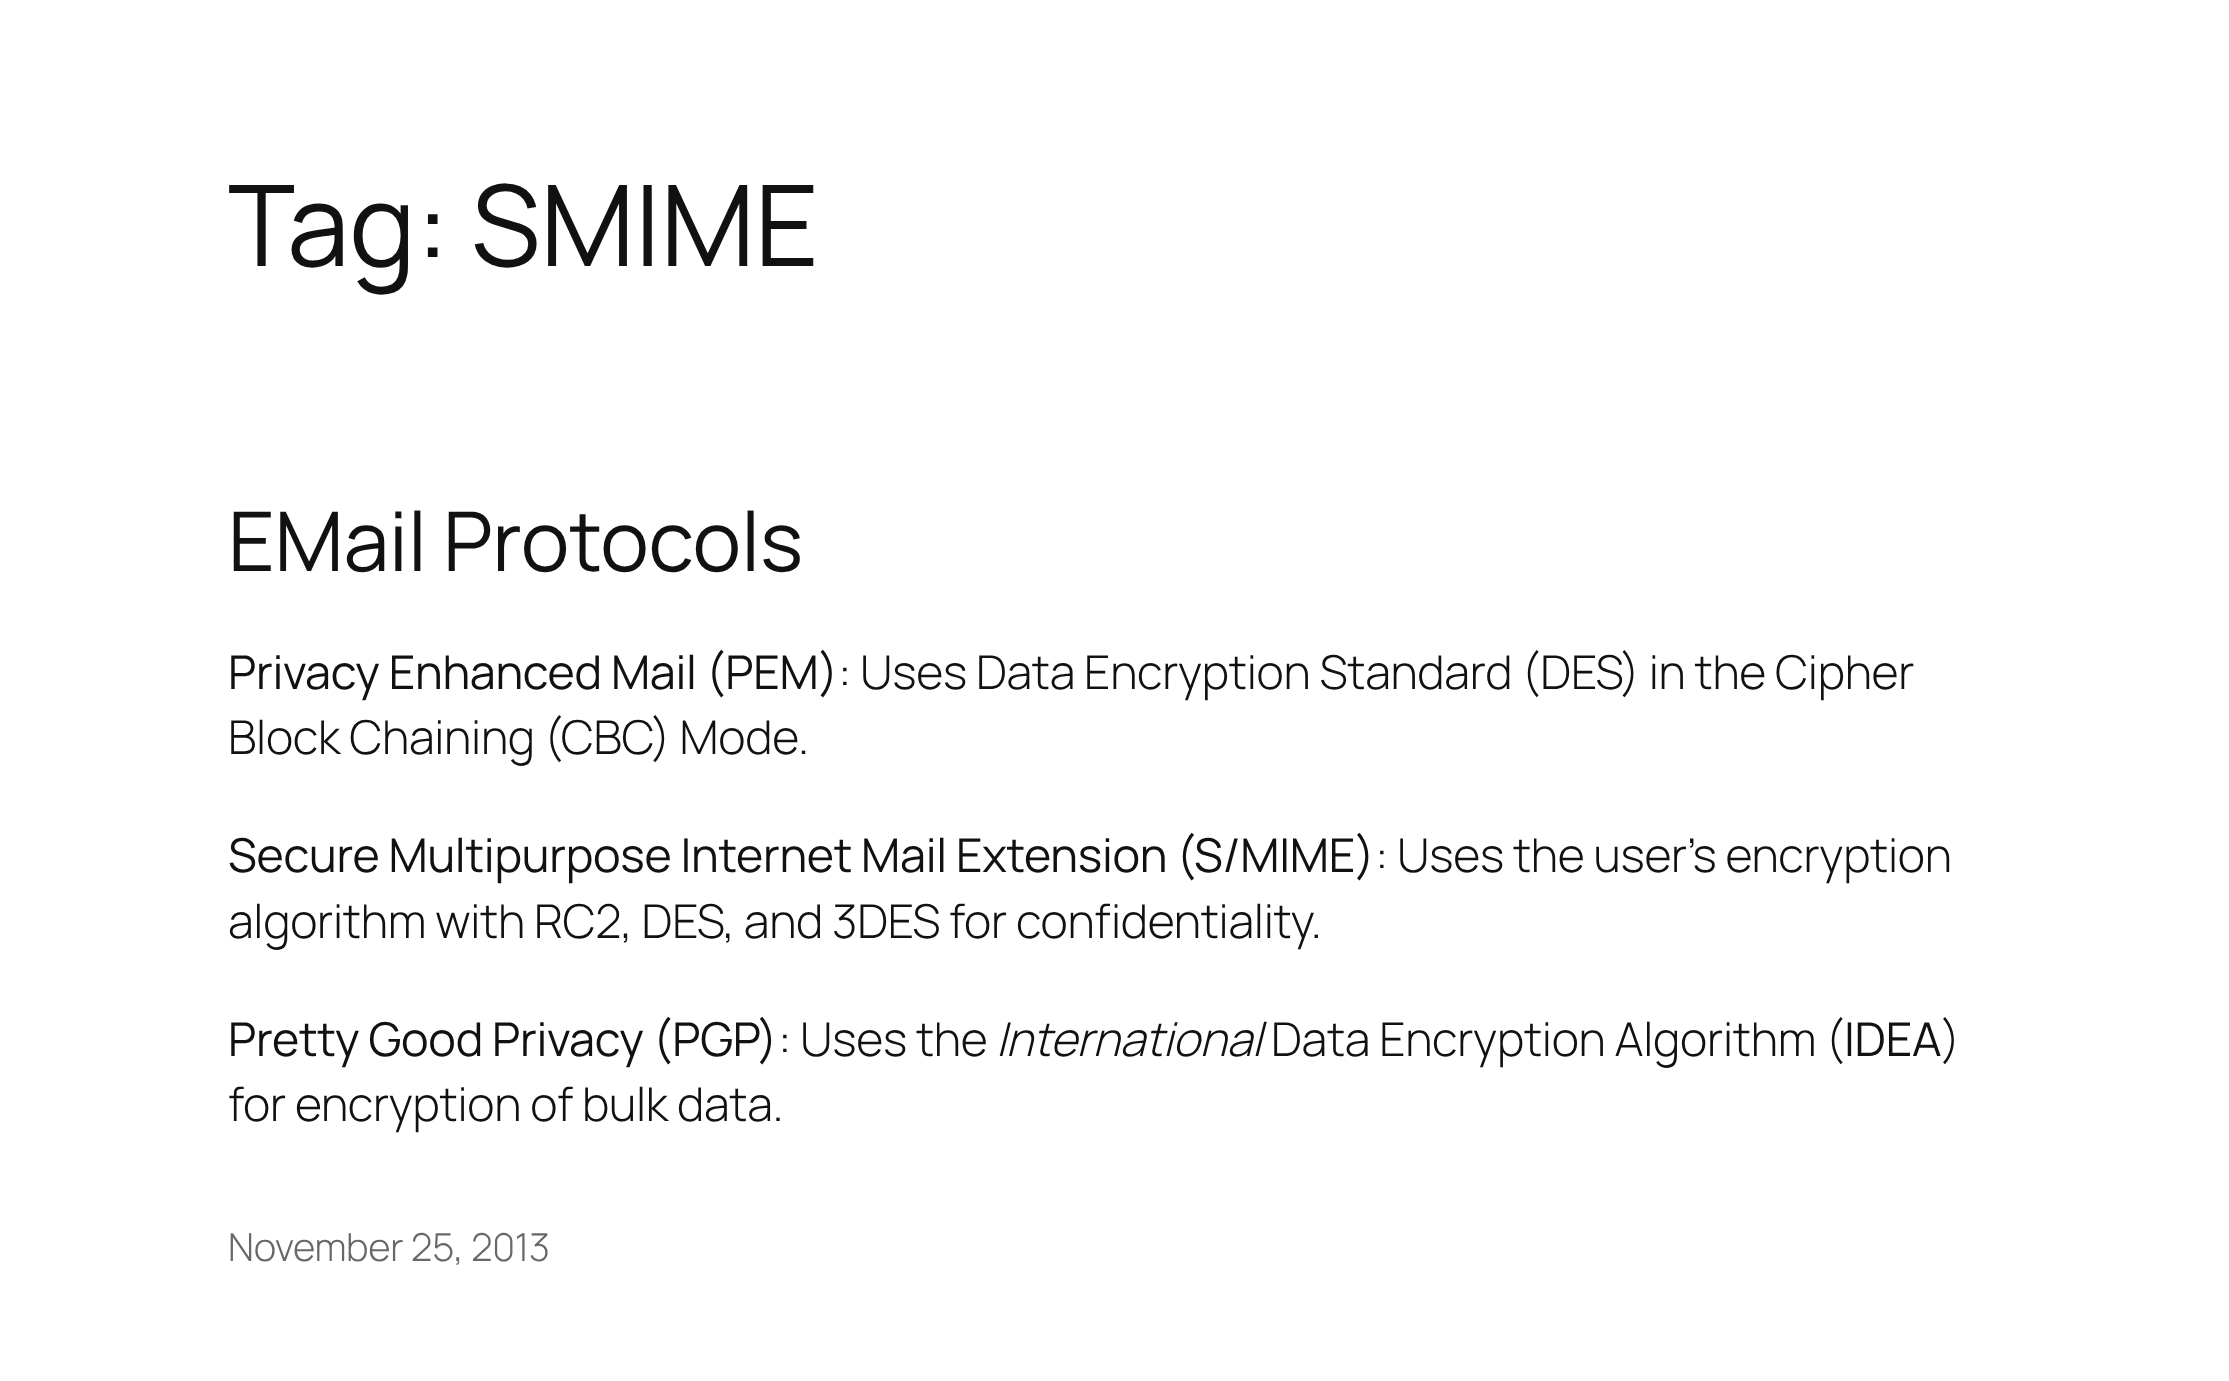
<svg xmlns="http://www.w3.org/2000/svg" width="2229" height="1381">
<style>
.a{font:112.5px Manrope;letter-spacing:-0.28px;fill:#111}
.b{font:82.25px Manrope;letter-spacing:-0.28px;fill:#111}
.c{font:46.65px Manrope;letter-spacing:-0.28px;fill:#111}
.d{font:300 46.65px Manrope;letter-spacing:-0.28px;fill:#111}
.e{font:italic 300 46.65px Manrope;letter-spacing:-0.28px;fill:#111}
.f{font:300 38.5px Manrope;letter-spacing:-0.28px;fill:#686868}
</style>
<rect width="100%" height="100%" fill="#fff"/>
<text class="a" x="228" y="266">Tag: SMIME</text>
<text class="b" x="228" y="571">EMail Protocols</text>
<text class="c" x="228" y="689">Privacy Enhanced Mail (PEM)</text>
<text class="d" x="838" y="689">: Uses Data Encryption Standard (DES) in the Cipher</text>
<text class="d" x="228" y="754">Block Chaining (CBC) Mode.</text>
<text class="c" x="228" y="872">Secure Multipurpose Internet Mail Extension (S/MIME)</text>
<text class="d" x="1375" y="872">: Uses the user’s encryption</text>
<text class="d" x="228" y="938">algorithm with RC2, DES, and 3DES for confidentiality.</text>
<text class="c" x="228" y="1056">Pretty Good Privacy (PGP)</text>
<text class="d" x="778" y="1056">: Uses the</text>
<text class="e" x="996" y="1056">International</text>
<text class="d" x="1271" y="1056">Data Encryption Algorithm (</text>
<text class="c" x="1844" y="1056">IDEA</text>
<text class="d" x="1941" y="1056">)</text>
<text class="d" x="228" y="1121">for encryption of bulk data.</text>
<text class="f" x="228" y="1261">November 25, 2013</text>
</svg>
